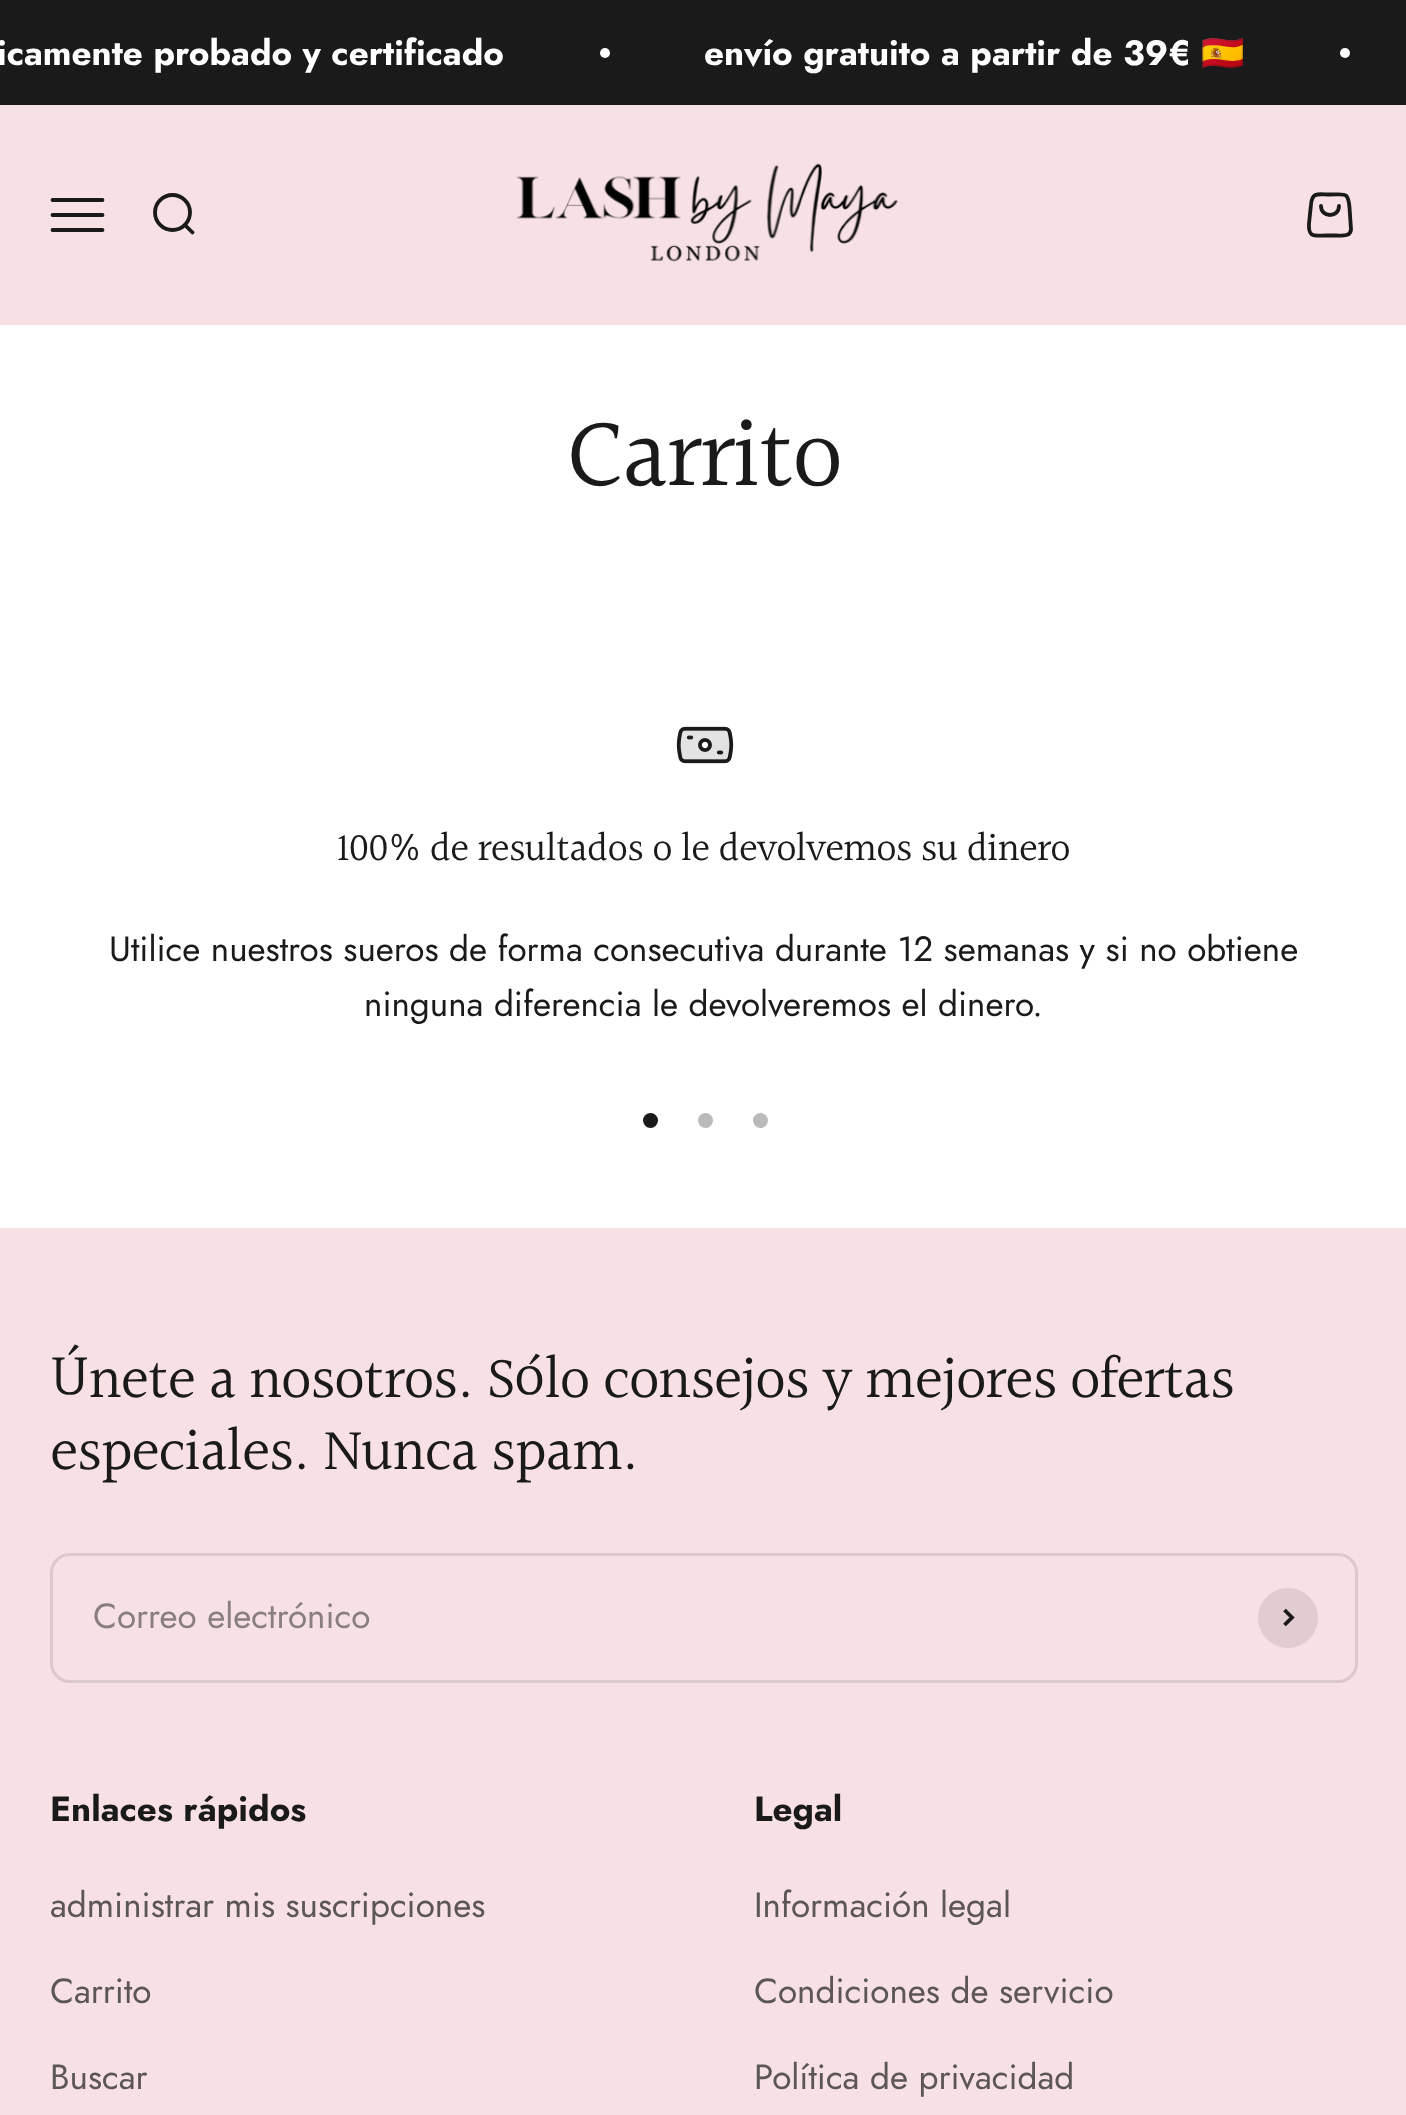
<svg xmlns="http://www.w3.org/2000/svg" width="1406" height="2115">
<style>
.a{font:bold 35px Jost;fill:#fff}
.b{font:bold 35px Noto Color Emoji;fill:#fff}
.c{font:100px Halant;letter-spacing:-2px;fill:#1a1a1a}
.d{font:40px Halant;letter-spacing:-0.8px;fill:#1a1a1a}
.e{font:35px Jost;fill:#1a1a1a}
.f{font:60px Halant;letter-spacing:-1.2px;fill:#1a1a1a}
.g{font:35px Jost;fill:#897e80}
.h{font:bold 35px Jost;fill:#1a1a1a}
.i{font:35px Jost;fill:#5c5657}
</style>
<rect width="100%" height="100%" fill="#fff"/>
<path fill="#1a1a1a" d="M0 0h1406v105H0z"/>
<circle fill="#fff" cx="605" cy="53" r="5"/>
<circle fill="#fff" cx="1345" cy="53" r="5"/>
<path fill="#f7e1e5" d="M0 105h1406v220H0z"/>
<path fill="none" stroke="#1a1a1a" stroke-width="3.8" stroke-linecap="round" d="M52.5 200h50m-50 15h50m-50 15h50"/>
<circle fill="none" stroke="#1a1a1a" stroke-width="3.8" cx="172.5" cy="212.5" r="17.5"/>
<path fill="none" stroke="#1a1a1a" stroke-width="3.8" stroke-linecap="round" stroke-linejoin="round" d="M185 225l7.5 7.5"/>
<image href="1.png" x="516" y="163" width="382" height="99"/>
<path fill="none" stroke="#1a1a1a" stroke-width="3.8" stroke-linecap="round" stroke-linejoin="round" d="M1339 206c0 12-18 12-18 0m-10-1.5l-2 19c-1 14.5 5.5 12 17.5 12h10c5 0 14 1.5 14.5-6l-1.5-22c-1.5-16-4-13-19.5-13c-11.5 0-18-3-19 10z"/>
<image href="2.png" x="676" y="726" width="58" height="38"/>
<circle fill="#1a1a1a" cx="650.5" cy="1120.5" r="7.5"/>
<circle fill="#bababa" cx="705.5" cy="1120.5" r="7.5"/>
<circle fill="#bababa" cx="760.5" cy="1120.5" r="7.5"/>
<path fill="#f7e1e5" d="M0 1228h1406v887H0z"/>
<rect fill="none" stroke="#dcc9cd" stroke-width="3" x="51.5" y="1554.5" width="1305" height="127" rx="18.5"/>
<circle fill="#e1cdd1" cx="1288" cy="1618" r="30"/>
<path fill="none" stroke="#1a1a1a" stroke-width="3.8" d="M1284.5 1625l7.5-7.5l-7.5-7.5"/>
<text class="a" x="-3" y="65">icamente probado y certificado</text>
<text class="a" x="704" y="65">envío gratuito a partir de 39€</text>
<text class="b" x="1201" y="65">🇪🇸</text>
<text class="c" x="566" y="490">Carrito</text>
<text class="d" x="337" y="862">100% de resultados o le devolvemos su dinero</text>
<text class="e" x="109" y="961">Utilice nuestros sueros de forma consecutiva durante 12 semanas y si no obtiene</text>
<text class="e" x="364" y="1016">ninguna diferencia le devolveremos el dinero.</text>
<text class="f" x="50" y="1400">Únete a nosotros. Sólo consejos y mejores ofertas</text>
<text class="f" x="50" y="1472">especiales. Nunca spam.</text>
<text class="g" x="93" y="1628">Correo electrónico</text>
<text class="h" x="50" y="1821">Enlaces rápidos</text>
<text class="i" x="50" y="1917">administrar mis suscripciones</text>
<text class="i" x="50" y="2003">Carrito</text>
<text class="i" x="50" y="2089">Buscar</text>
<text class="h" x="754" y="1821">Legal</text>
<text class="i" x="754" y="1917">Información legal</text>
<text class="i" x="754" y="2003">Condiciones de servicio</text>
<text class="i" x="754" y="2089">Política de privacidad</text>
</svg>
